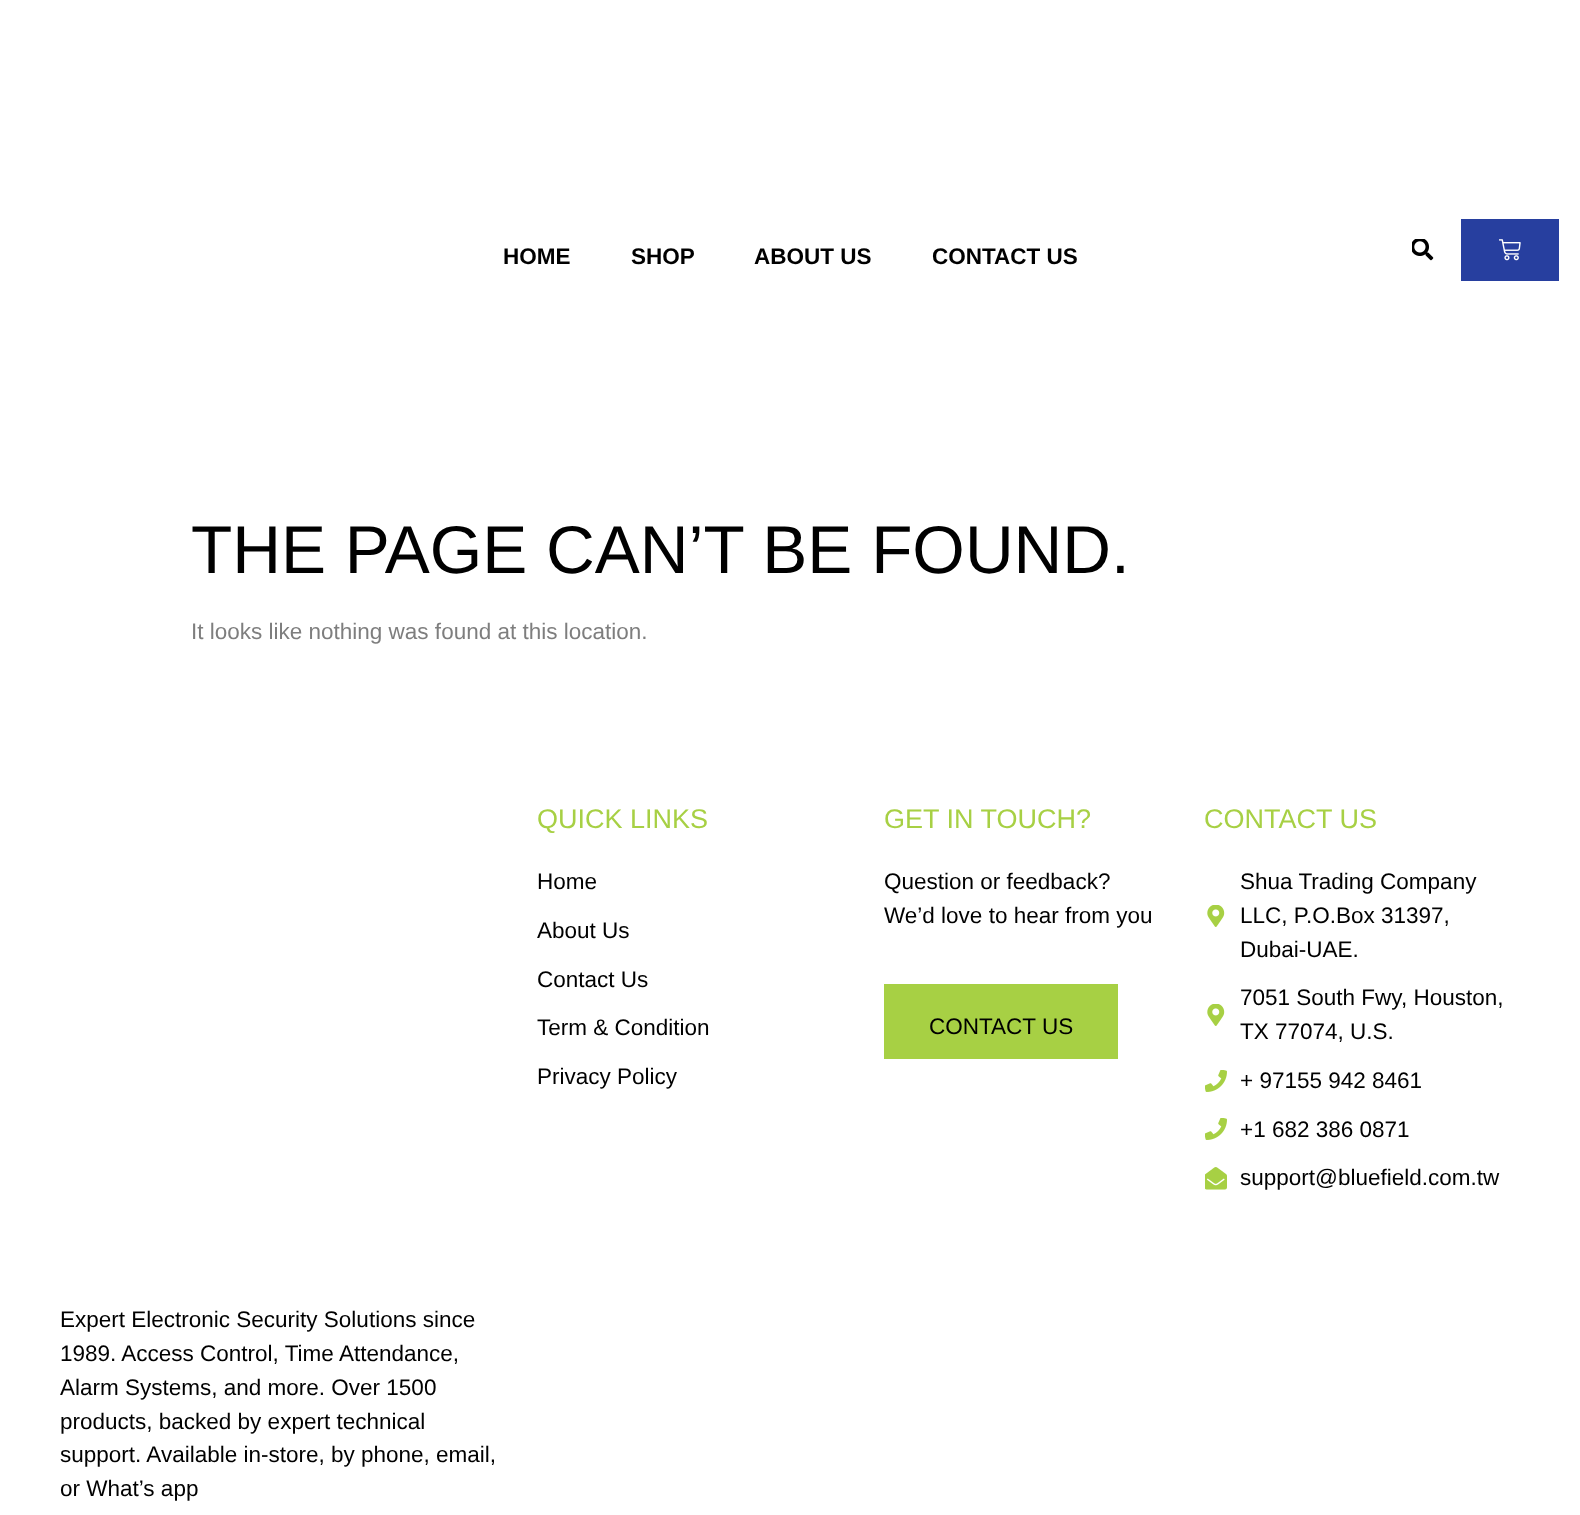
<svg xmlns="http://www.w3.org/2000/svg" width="1580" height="1515">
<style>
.a{font:bold 22.5px Liberation Sans;fill:#000}
.b{font:67.5px Liberation Sans;fill:#000}
.c{font:22.5px Liberation Sans;fill:#7e7e7e}
.d{font:27px Liberation Sans;fill:#a7d044}
.e{font:22.5px Liberation Sans;fill:#000}
</style>
<rect width="100%" height="100%" fill="#fff"/>
<image href="1.png" x="1412" y="239" width="22" height="22"/>
<path fill="#273f9f" d="M1461 219h98v62H1461z"/>
<image href="2.png" x="1499" y="239" width="22" height="22"/>
<path fill="#a7d044" d="M884 984h234v75H884z"/>
<image href="3.png" x="1207" y="905" width="18" height="22"/>
<image href="3.png" x="1207" y="1004" width="18" height="22"/>
<image href="4.png" x="1205" y="1070" width="22" height="22"/>
<image href="4.png" x="1205" y="1118" width="22" height="22"/>
<image href="5.png" x="1205" y="1167" width="22" height="23"/>
<text class="a" x="503" y="264">HOME</text>
<text class="a" x="631" y="264">SHOP</text>
<text class="a" x="754" y="264">ABOUT US</text>
<text class="a" x="932" y="264">CONTACT US</text>
<text class="b" x="191" y="573">THE PAGE CAN’T BE FOUND.</text>
<text class="c" x="191" y="639">It looks like nothing was found at this location.</text>
<text class="d" x="537" y="828">QUICK LINKS</text>
<text class="e" x="537" y="889">Home</text>
<text class="e" x="537" y="938">About Us</text>
<text class="e" x="537" y="987">Contact Us</text>
<text class="e" x="537" y="1035">Term &amp; Condition</text>
<text class="e" x="537" y="1084">Privacy Policy</text>
<text class="d" x="884" y="828">GET IN TOUCH?</text>
<text class="e" x="884" y="889">Question or feedback?</text>
<text class="e" x="884" y="923">We’d love to hear from you</text>
<text class="e" x="929" y="1034">CONTACT US</text>
<text class="d" x="1204" y="828">CONTACT US</text>
<text class="e" x="1240" y="889">Shua Trading Company</text>
<text class="e" x="1240" y="923">LLC, P.O.Box 31397,</text>
<text class="e" x="1240" y="957">Dubai-UAE.</text>
<text class="e" x="1240" y="1005">7051 South Fwy, Houston,</text>
<text class="e" x="1240" y="1039">TX 77074, U.S.</text>
<text class="e" x="1240" y="1088">+ 97155 942 8461</text>
<text class="e" x="1240" y="1137">+1 682 386 0871</text>
<text class="e" x="1240" y="1185">support@bluefield.com.tw</text>
<text class="e" x="60" y="1327">Expert Electronic Security Solutions since</text>
<text class="e" x="60" y="1361">1989. Access Control, Time Attendance,</text>
<text class="e" x="60" y="1395">Alarm Systems, and more. Over 1500</text>
<text class="e" x="60" y="1429">products, backed by expert technical</text>
<text class="e" x="60" y="1462">support. Available in-store, by phone, email,</text>
<text class="e" x="60" y="1496">or What’s app</text>
</svg>
